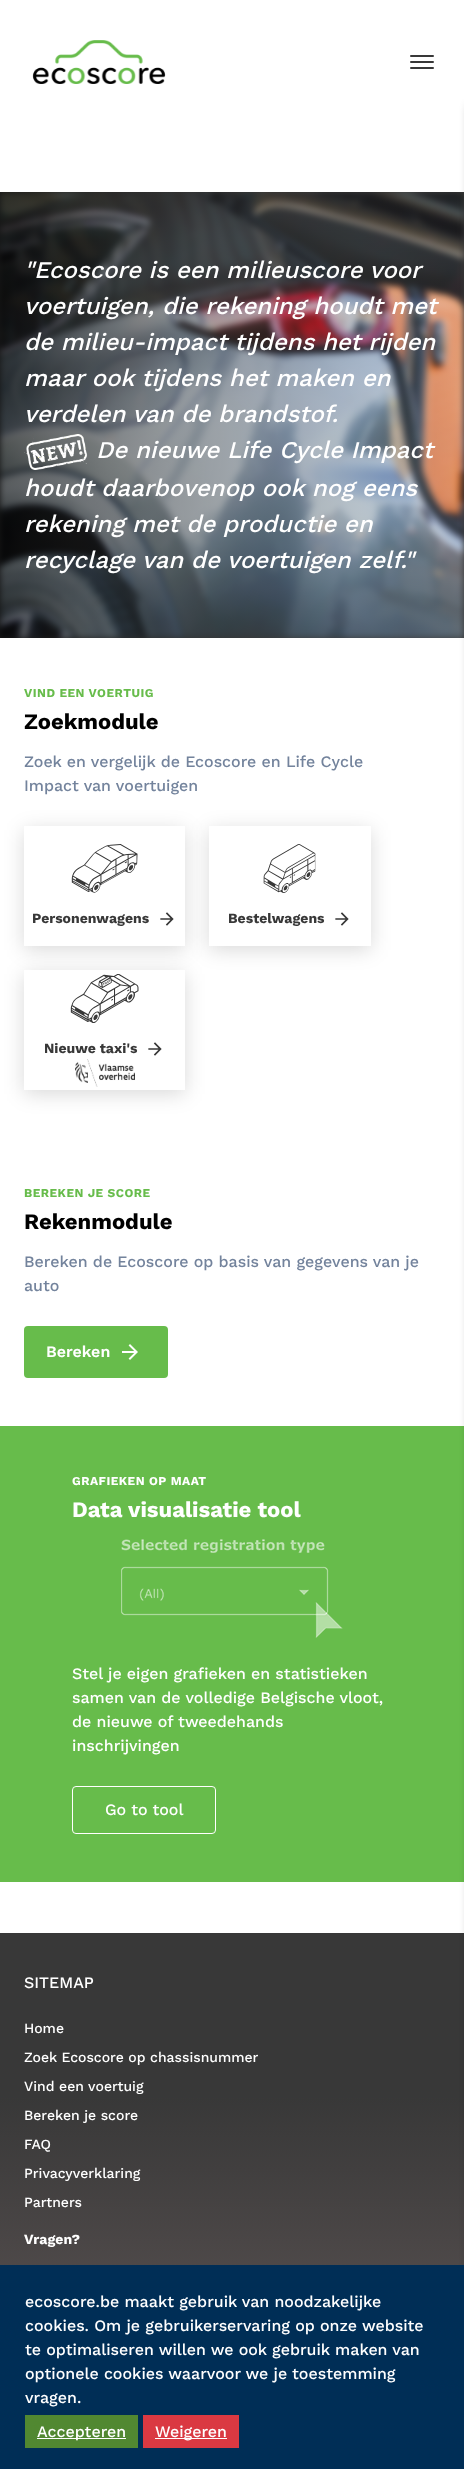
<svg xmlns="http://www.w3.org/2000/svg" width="464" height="2469">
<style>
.a{font:italic 500 24px Work Sans;fill:#fff}
.b{font:bold 12px Work Sans;letter-spacing:0.5px;fill:#67bc4b}
.c{font:bold 22px Work Sans;fill:#000}
.d{font:500 16px Work Sans;fill:#73839c}
.e{font:bold 14px Work Sans;fill:#383838}
.f{font:600 16px Work Sans;fill:#fff}
.g{font:bold 12px Work Sans;letter-spacing:0.5px;fill:#fff}
.h{font:bold 22px Work Sans;fill:#fff}
.i{font:500 16px Work Sans;fill:#fff}
.j{font:500 14px Work Sans;fill:#fff}
.k{font:bold 14px Work Sans;fill:#fff}
</style>
<defs>
<linearGradient id="g1" gradientUnits="userSpaceOnUse" x1="0" y1="415" x2="464" y2="415"><stop offset="0" stop-color="#000" stop-opacity="0.6"/><stop offset="1" stop-color="#646464" stop-opacity="0.12"/></linearGradient>
<linearGradient id="g2" gradientUnits="userSpaceOnUse" x1="232" y1="1933" x2="232" y2="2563"><stop offset="0.26" stop-color="#383838"/><stop offset="1" stop-color="#726565"/></linearGradient>
<clipPath id="clip1"><path d="M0 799h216v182h-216zm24 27h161v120h-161z" clip-rule="evenodd"/></clipPath>
<clipPath id="clip2"><path d="M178 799h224v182h-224zm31 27h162v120h-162z" clip-rule="evenodd"/></clipPath>
<clipPath id="clip3"><path d="M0 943h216v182h-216zm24 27h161v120h-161z" clip-rule="evenodd"/></clipPath>
</defs>
<rect width="100%" height="100%" fill="#fff"/>
<image href="1.png" x="32" y="40" width="134" height="44"/>
<rect fill="#383838" x="410" y="55" width="24" height="2" rx="1"/>
<rect fill="#383838" x="410" y="61" width="24" height="2" rx="1"/>
<rect fill="#383838" x="410" y="67" width="24" height="2" rx="1"/>
<path fill="#383838" d="M0 192h464v446H0z"/>
<image href="2.png" x="0" y="192" width="464" height="446"/>
<path fill="url(#g1)" d="M0 192h464v446H0z"/>
<path fill="#67bc4b" d="M0 1426h464v456H0z"/>
<path fill="url(#g2)" d="M0 1933h464v332H0z"/>
<path fill="#00000059" filter="blur(5px)" d="M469 106h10v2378H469z"/>
<image href="3.png" x="24" y="434" width="64" height="36"/>
<g clip-path="url(#clip1)">
<path fill="#00000026" filter="blur(10px)" d="M24 830h161v120H24z"/>
</g>
<image href="4.png" x="71" y="844" width="67" height="49"/>
<image href="5.png" x="160" y="912" width="14" height="14"/>
<g clip-path="url(#clip2)">
<path fill="#00000026" filter="blur(10px)" d="M209 830h162v120H209z"/>
</g>
<image href="6.png" x="263" y="844" width="53" height="49"/>
<image href="5.png" x="335" y="912" width="14" height="14"/>
<g clip-path="url(#clip3)">
<path fill="#00000026" filter="blur(10px)" d="M24 974h161v120H24z"/>
</g>
<image href="7.png" x="70" y="974" width="69" height="49"/>
<image href="5.png" x="148" y="1042" width="14" height="14"/>
<image href="8.png" x="75" y="1059" width="60" height="28"/>
<rect fill="#67bc4b" x="24" y="1326" width="144" height="52" rx="4"/>
<image href="9.png" x="122" y="1344" width="16" height="16"/>
<image href="10.png" x="121" y="1539" width="222" height="99"/>
<rect fill="none" stroke="#fff" x="72.5" y="1786.5" width="143" height="47" rx="3.5"/>
<path fill="#002e56" d="M0 2265h464v204H0z"/>
<path fill="#518831" d="M25 2415h113v33H25z"/>
<path fill="#fff" d="M37 2438h89v1H37z"/>
<path fill="#da3942" d="M143 2415h96v33H143z"/>
<path fill="#fff" d="M155 2438h72v1H155z"/>
<text class="a" x="24" y="278">"Ecoscore is een milieuscore voor</text>
<text class="a" x="24" y="314">voertuigen, die rekening houdt met</text>
<text class="a" x="24" y="350">de milieu-impact tijdens het rijden</text>
<text class="a" x="24" y="386">maar ook tijdens het maken en</text>
<text class="a" x="24" y="422">verdelen van de brandstof.</text>
<text class="a" x="96" y="458">De nieuwe Life Cycle Impact</text>
<text class="a" x="24" y="496">houdt daarbovenop ook nog eens</text>
<text class="a" x="24" y="532">rekening met de productie en</text>
<text class="a" x="24" y="568">recyclage van de voertuigen zelf."</text>
<text class="b" x="24" y="697">VIND EEN VOERTUIG</text>
<text class="c" x="24" y="729">Zoekmodule</text>
<text class="d" x="24" y="767">Zoek en vergelijk de Ecoscore en Life Cycle</text>
<text class="d" x="24" y="791">Impact van voertuigen</text>
<text class="e" x="32" y="923">Personenwagens</text>
<text class="e" x="228" y="923">Bestelwagens</text>
<text class="e" x="44" y="1053">Nieuwe taxi's</text>
<text class="b" x="24" y="1197">BEREKEN JE SCORE</text>
<text class="c" x="24" y="1229">Rekenmodule</text>
<text class="d" x="24" y="1267">Bereken de Ecoscore op basis van gegevens van je</text>
<text class="d" x="24" y="1291">auto</text>
<text class="f" x="46" y="1357">Bereken</text>
<text class="g" x="72" y="1485">GRAFIEKEN OP MAAT</text>
<text class="h" x="72" y="1517">Data visualisatie tool</text>
<text class="i" x="72" y="1679">Stel je eigen grafieken en statistieken</text>
<text class="i" x="72" y="1703">samen van de volledige Belgische vloot,</text>
<text class="i" x="72" y="1727">de nieuwe of tweedehands</text>
<text class="i" x="72" y="1751">inschrijvingen</text>
<text class="i" x="105" y="1815">Go to tool</text>
<text class="i" x="24" y="1988">SITEMAP</text>
<text class="j" x="24" y="2033">Home</text>
<text class="j" x="24" y="2062">Zoek Ecoscore op chassisnummer</text>
<text class="j" x="24" y="2091">Vind een voertuig</text>
<text class="j" x="24" y="2120">Bereken je score</text>
<text class="j" x="24" y="2149">FAQ</text>
<text class="j" x="24" y="2178">Privacyverklaring</text>
<text class="j" x="24" y="2207">Partners</text>
<text class="k" x="24" y="2244">Vragen?</text>
<text class="i" x="25" y="2307">ecoscore.be maakt gebruik van noodzakelijke</text>
<text class="i" x="25" y="2331">cookies. Om je gebruikerservaring op onze website</text>
<text class="i" x="25" y="2355">te optimaliseren willen we ook gebruik maken van</text>
<text class="i" x="25" y="2379">optionele cookies waarvoor we je toestemming</text>
<text class="i" x="25" y="2403">vragen.</text>
<text class="i" x="37" y="2437">Accepteren</text>
<text class="i" x="155" y="2437">Weigeren</text>
</svg>
